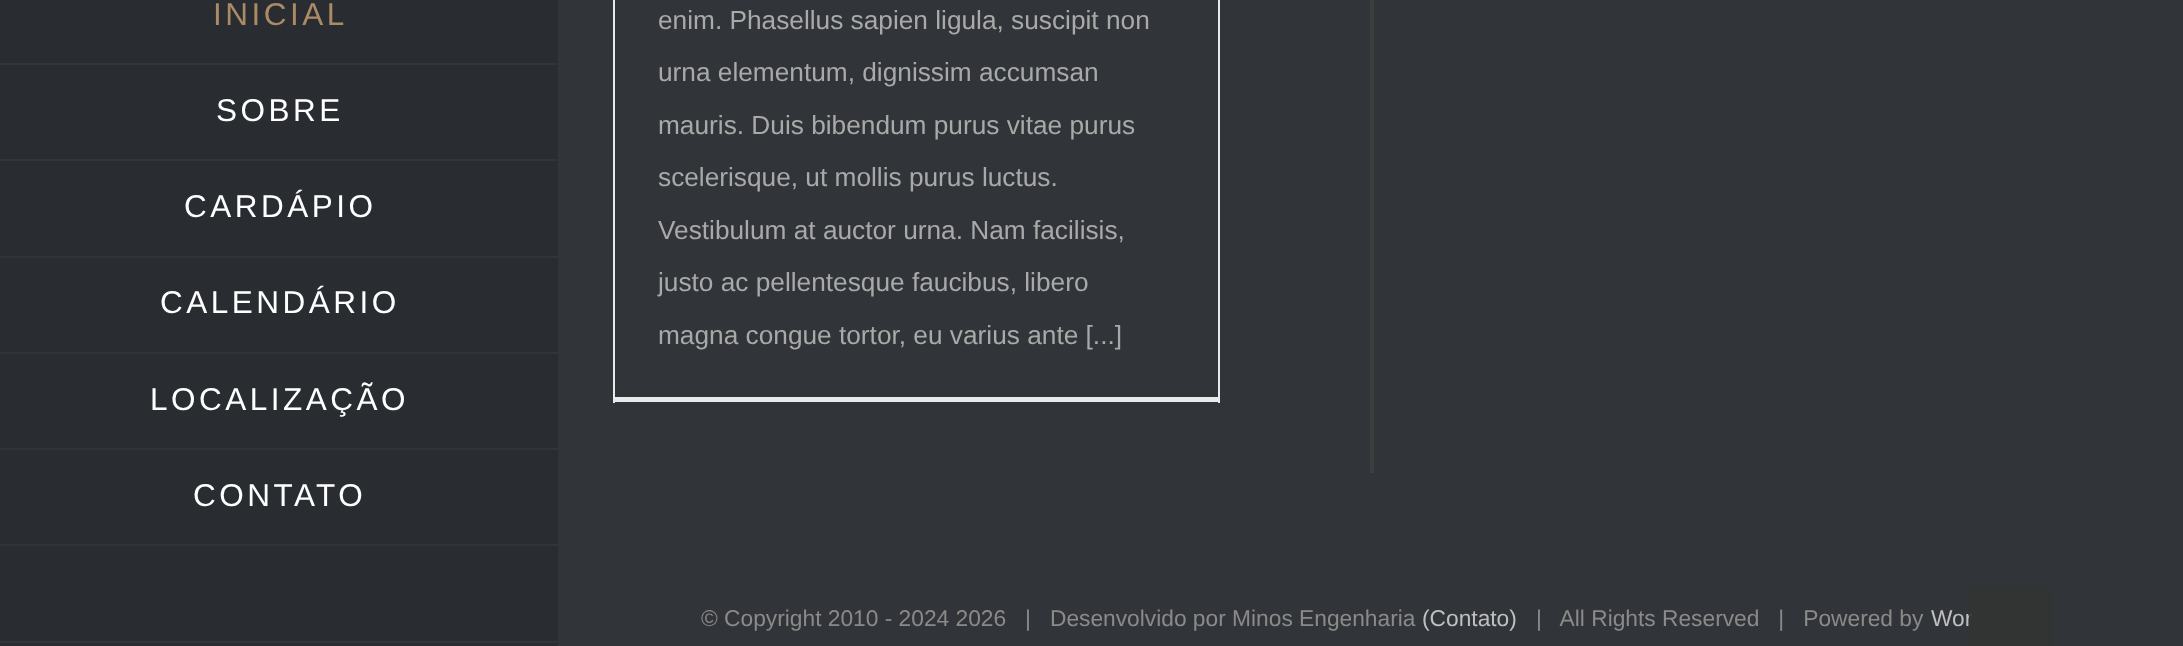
<svg xmlns="http://www.w3.org/2000/svg" width="2183" height="646">
<style>
.a{font:31.5px Liberation Sans;letter-spacing:3.5px;fill:#ab8b65}
.b{font:31.5px Liberation Sans;letter-spacing:3.5px;fill:#fff}
.c{font:26.25px Liberation Sans;fill:#aaa9a9}
.d{font:22.75px Liberation Sans;fill:#8c8989}
.e{font:22.75px Liberation Sans;fill:#bfbfbf}
</style>
<rect width="100%" height="100%" fill="#313539"/>
<path fill="#292c30" d="M0 0h558v646H0z"/>
<path fill="#313539" d="M0 63h560v2H0z"/>
<path fill="#313539" d="M0 159h560v2H0z"/>
<path fill="#313539" d="M0 256h560v2H0z"/>
<path fill="#313539" d="M0 352h560v2H0z"/>
<path fill="#313539" d="M0 448h560v2H0z"/>
<path fill="#313539" d="M0 544h560v2H0z"/>
<path fill="#313539" d="M0 641h560v2H0z"/>
<path fill="#eaeaea" d="M1218 0h2v403H1218z"/>
<path fill="#eaeaea" d="M613 397h607v5H613z"/>
<path fill="#eaeaea" d="M613 0h2v403H613z"/>
<path fill="#3e3e3e" d="M1370 0h4v473H1370z"/>
<text class="a" x="213" y="25">INICIAL</text>
<text class="b" x="216" y="121">SOBRE</text>
<text class="b" x="184" y="217">CARDÁPIO</text>
<text class="b" x="160" y="313">CALENDÁRIO</text>
<text class="b" x="150" y="410">LOCALIZAÇÃO</text>
<text class="b" x="193" y="506">CONTATO</text>
<text class="c" x="658" y="29">enim. Phasellus sapien ligula, suscipit non</text>
<text class="c" x="658" y="81">urna elementum, dignissim accumsan</text>
<text class="c" x="658" y="134">mauris. Duis bibendum purus vitae purus</text>
<text class="c" x="658" y="186">scelerisque, ut mollis purus luctus.</text>
<text class="c" x="658" y="239">Vestibulum at auctor urna. Nam facilisis,</text>
<text class="c" x="658" y="291">justo ac pellentesque faucibus, libero</text>
<text class="c" x="658" y="344">magna congue tortor, eu varius ante [...]</text>
<text class="d" xml:space="preserve" x="701" y="626">© Copyright 2010 - 2024 2026   |   Desenvolvido por Minos Engenharia</text>
<text class="e" x="1422" y="626">(Contato)</text>
<text class="d" xml:space="preserve" x="1536" y="626">|   All Rights Reserved   |   Powered by</text>
<text class="e" x="1931" y="626">Wor</text>
<path fill="#333333e6" d="M1976 586h70c4 0 7 3 7 7v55h-84v-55c0-4 3-7 7-7z"/>
</svg>
